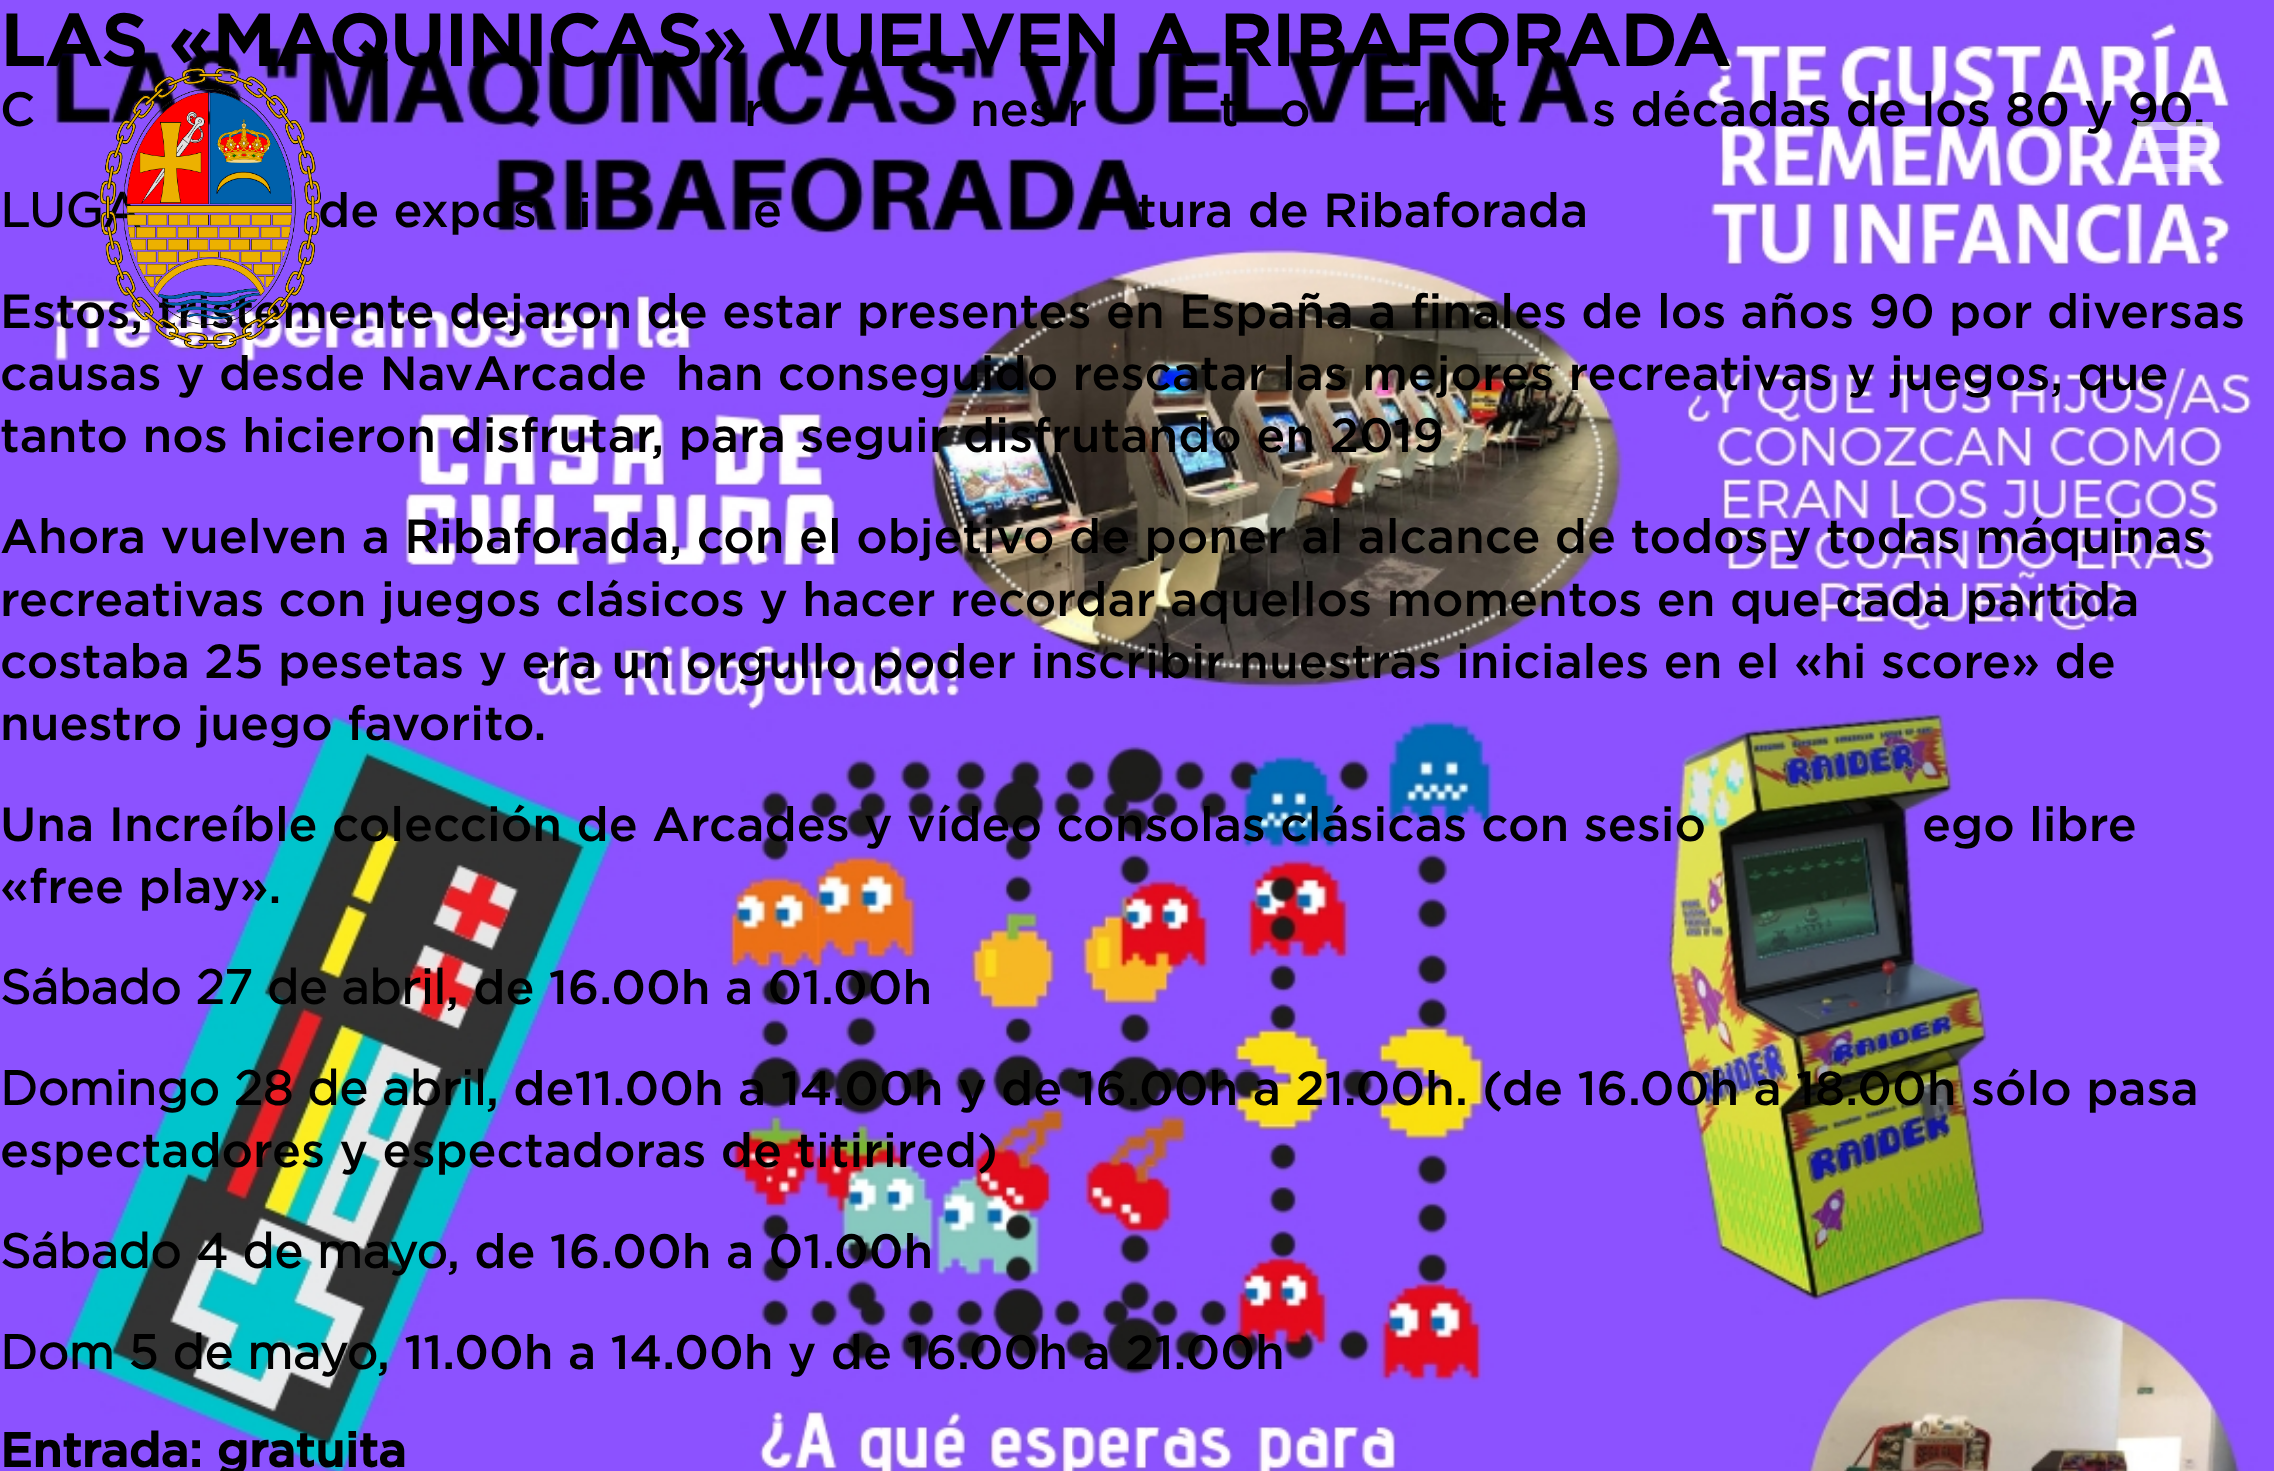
<svg xmlns="http://www.w3.org/2000/svg" width="2274" height="1471">
<style>
.a{font:bold 72px Gotham;fill:#000}
.b{font:500 48px Gotham;fill:#000}
.c{font:bold 48px 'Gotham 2';fill:#000}
.d{font:bold 48px Gotham;fill:#000}
</style>
<rect width="100%" height="100%" fill="#fff"/>
<image href="1.png" x="0" y="0" width="2274" height="1471"/>
<text class="a" x="0" y="66">LAS «MAQUINICAS» VUELVEN A RIBAFORADA</text>
<text class="b" x="0" y="126">C</text>
<text class="b" x="744" y="126">r</text>
<text class="b" x="970" y="126">nes r</text>
<text class="b" x="1219" y="126">t</text>
<text class="b" x="1279" y="126">o</text>
<text class="b" x="1411" y="126">r</text>
<text class="b" x="1488" y="126">t</text>
<text class="b" x="1592" y="126">s décadas de los 80 y 90.</text>
<text class="c" x="0" y="227">LUGA</text>
<text class="b" x="318" y="227">de expos</text>
<text class="b" x="578" y="227">i</text>
<text class="b" x="753" y="227">e</text>
<text class="b" x="1137" y="227">tura de Ribaforada</text>
<text class="b" x="0" y="328">Estos, tristemente dejaron de estar presentes en España a finales de los años 90 por diversas</text>
<image href="2.png" x="100" y="67" width="221" height="282"/>
<text class="b" xml:space="preserve" x="0" y="390">causas y desde NavArcade  han conseguido rescatar las mejores recreativas y juegos, que</text>
<text class="b" x="0" y="452">tanto nos hicieron disfrutar, para seguir disfrutando en 2019</text>
<text class="b" x="0" y="553">Ahora vuelven a Ribaforada, con el objetivo de poner al alcance de todos y todas máquinas</text>
<text class="b" x="0" y="616">recreativas con juegos clásicos y hacer recordar aquellos momentos en que cada partida</text>
<text class="b" x="0" y="678">costaba 25 pesetas y era un orgullo poder inscribir nuestras iniciales en el «hi score» de</text>
<text class="b" x="0" y="740">nuestro juego favorito.</text>
<text class="b" x="0" y="841">Una Increíble colección de Arcades y vídeo consolas clásicas con sesio</text>
<text class="b" x="1922" y="841">ego libre</text>
<text class="b" x="0" y="903">«free play».</text>
<text class="c" x="0" y="1004">Sábado 27 de abril</text>
<text class="b" x="446" y="1004">, de 16.00h a 01.00h</text>
<text class="c" x="0" y="1105">Domingo 28 de abril</text>
<text class="b" x="486" y="1105">, de11.00h a 14.00h y de 16.00h a 21.00h. (de 16.00h a 18.00h sólo pasa</text>
<text class="b" x="0" y="1167">espectadores y espectadoras de titirired)</text>
<text class="c" x="0" y="1268">Sábado 4 de mayo</text>
<text class="b" x="447" y="1268">, de 16.00h a 01.00h</text>
<text class="c" x="0" y="1369">Dom 5 de mayo</text>
<text class="b" x="377" y="1369">, 11.00h a 14.00h y de 16.00h a 21.00h</text>
<text class="d" x="0" y="1467">Entrada: gratuita</text>
<path fill="#ffffff99" d="M2137 122h76v8h-76zm0 29v-8h76v8zm0 21v-8h76v8z"/>
</svg>
